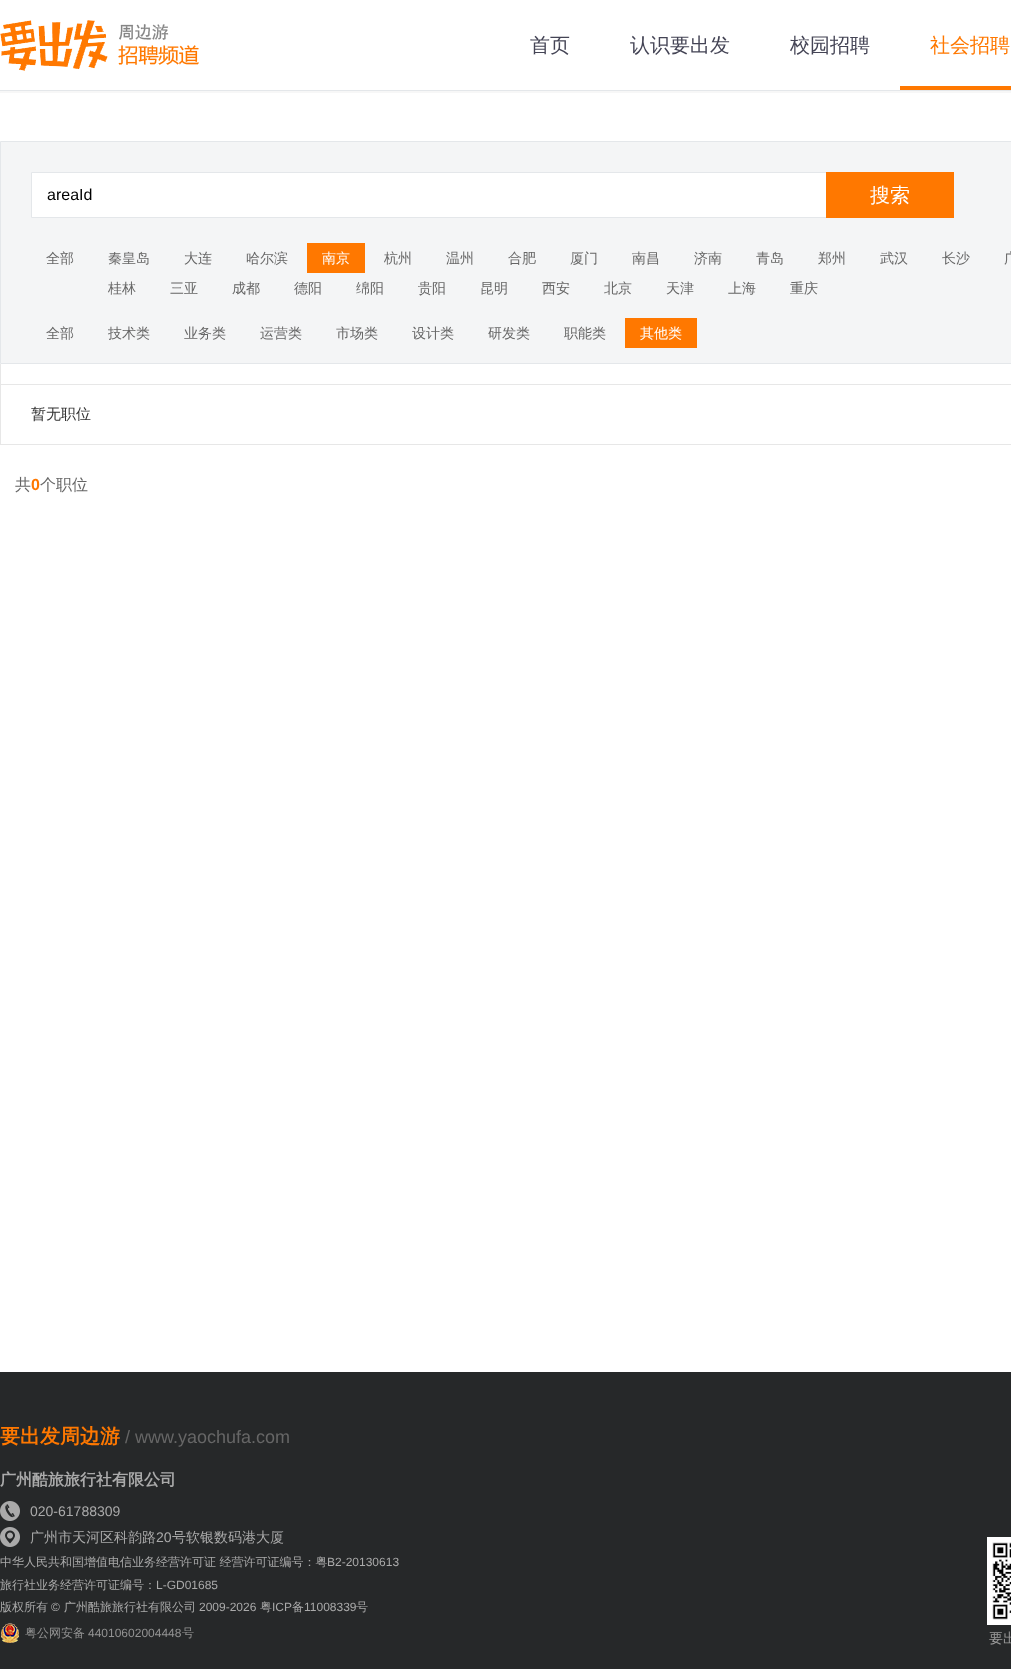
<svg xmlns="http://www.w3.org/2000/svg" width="1011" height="1669">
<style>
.a{font:500 20px WenQuanYi Zen Hei;fill:#445}
.b{font:500 20px WenQuanYi Zen Hei;fill:#ff7800}
.c{font:16px Liberation Sans;fill:#000}
.d{font:500 20px WenQuanYi Zen Hei;fill:#fff}
.e{font:500 14px WenQuanYi Zen Hei;fill:#666}
.f{font:500 14px WenQuanYi Zen Hei;fill:#fff}
.g{font:500 15px WenQuanYi Zen Hei;fill:#333}
.h{font:500 16px WenQuanYi Zen Hei;fill:#666}
.i{font:bold 16px Liberation Sans;fill:#ff7800}
.j{font:bold 20px WenQuanYi Zen Hei;fill:#ff7800}
.k{font:18px Liberation Sans;fill:#666}
.l{font:bold 16px WenQuanYi Zen Hei;fill:#aaa}
.m{font:14px Liberation Sans;fill:#aaa}
.n{font:500 14px WenQuanYi Zen Hei;fill:#aaa}
.o{font:500 12px WenQuanYi Zen Hei;fill:#aaa}
.p{font:12px Liberation Sans;fill:#aaa}
.q{font:500 12px WenQuanYi Zen Hei;fill:#939393}
.r{font:12px Liberation Sans;fill:#939393}
.s{font:500 14px WenQuanYi Zen Hei;fill:#999}
</style>
<rect width="100%" height="100%" fill="#fff"/>
<path fill="#f7f7f7" d="M0 91h1011v2H0z"/>
<path fill="#e4e7ea" d="M0 90h1011v1H0z"/>
<image href="1.png" x="0" y="20" width="199" height="51"/>
<path fill="#ff7800" d="M900 86h111v4H900z"/>
<path fill="#f4f5f6" stroke="#e4e7ea" d="M0.5 141.5h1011v222H0.5z"/>
<path fill="#fff" stroke="#e4e7ea" d="M31.5 172.5h795v45H31.5z"/>
<path fill="#ff7800" d="M826 172h128v46H826z"/>
<path fill="#ff7800" d="M307 243h58v30H307z"/>
<path fill="#ff7800" d="M625 318h72v30H625z"/>
<path fill="#e7e7e7" d="M0 444h1011v1H0z"/>
<path fill="#e7e7e7" d="M0 364h1v81H0z"/>
<path fill="#e7e7e7" d="M1 384h1010v1H1z"/>
<path fill="#262829" d="M0 1372h1011v297H0z"/>
<image href="2.png" x="0" y="1501" width="20" height="20"/>
<image href="3.png" x="0" y="1527" width="20" height="20"/>
<image href="4.png" x="1" y="1623" width="18" height="20"/>
<image href="5.png" x="987" y="1537" width="24" height="88"/>
<text class="a" x="530" y="52">首页</text>
<text class="a" x="630" y="52">认识要出发</text>
<text class="a" x="790" y="52">校园招聘</text>
<text class="b" x="930" y="52">社会招聘</text>
<text class="c" x="47" y="200">areaId</text>
<text class="d" x="870" y="202">搜索</text>
<text class="e" x="46" y="263">全部</text>
<text class="e" x="108" y="263">秦皇岛</text>
<text class="e" x="184" y="263">大连</text>
<text class="e" x="246" y="263">哈尔滨</text>
<text class="f" x="322" y="263">南京</text>
<text class="e" x="384" y="263">杭州</text>
<text class="e" x="446" y="263">温州</text>
<text class="e" x="508" y="263">合肥</text>
<text class="e" x="570" y="263">厦门</text>
<text class="e" x="632" y="263">南昌</text>
<text class="e" x="694" y="263">济南</text>
<text class="e" x="756" y="263">青岛</text>
<text class="e" x="818" y="263">郑州</text>
<text class="e" x="880" y="263">武汉</text>
<text class="e" x="942" y="263">长沙</text>
<text class="e" x="1004" y="263">广</text>
<text class="e" x="108" y="293">桂林</text>
<text class="e" x="170" y="293">三亚</text>
<text class="e" x="232" y="293">成都</text>
<text class="e" x="294" y="293">德阳</text>
<text class="e" x="356" y="293">绵阳</text>
<text class="e" x="418" y="293">贵阳</text>
<text class="e" x="480" y="293">昆明</text>
<text class="e" x="542" y="293">西安</text>
<text class="e" x="604" y="293">北京</text>
<text class="e" x="666" y="293">天津</text>
<text class="e" x="728" y="293">上海</text>
<text class="e" x="790" y="293">重庆</text>
<text class="e" x="46" y="338">全部</text>
<text class="e" x="108" y="338">技术类</text>
<text class="e" x="184" y="338">业务类</text>
<text class="e" x="260" y="338">运营类</text>
<text class="e" x="336" y="338">市场类</text>
<text class="e" x="412" y="338">设计类</text>
<text class="e" x="488" y="338">研发类</text>
<text class="e" x="564" y="338">职能类</text>
<text class="f" x="640" y="338">其他类</text>
<text class="g" x="31" y="419">暂无职位</text>
<text class="h" x="15" y="490">共</text>
<text class="i" x="31" y="490">0</text>
<text class="h" x="40" y="490">个职位</text>
<text class="j" x="0" y="1443">要出发周边游</text>
<text class="k" x="125" y="1443">/ www.yaochufa.com</text>
<text class="l" x="0" y="1485">广州酷旅旅行社有限公司</text>
<text class="m" x="30" y="1516">020-61788309</text>
<text class="n" x="30" y="1542">广州市天河区科韵路</text>
<text class="m" x="156" y="1542">20</text>
<text class="n" x="172" y="1542">号软银数码港大厦</text>
<text class="o" x="0" y="1566">中华人民共和国增值电信业务经营许可证 经营许可证编号：粤</text>
<text class="p" x="327" y="1566">B2-20130613</text>
<text class="o" x="0" y="1589">旅行社业务经营许可证编号：</text>
<text class="p" x="156" y="1589">L-GD01685</text>
<text class="o" x="0" y="1611">版权所有</text>
<text class="p" x="51" y="1611">©</text>
<text class="o" x="64" y="1611">广州酷旅旅行社有限公司</text>
<text class="p" x="199" y="1611">2009-2026</text>
<text class="o" x="260" y="1611">粤</text>
<text class="p" x="272" y="1611">ICP</text>
<text class="o" x="292" y="1611">备</text>
<text class="p" x="304" y="1611">11008339</text>
<text class="o" x="356" y="1611">号</text>
<text class="q" x="25" y="1637">粤公网安备</text>
<text class="r" x="88" y="1637">44010602004448</text>
<text class="q" x="182" y="1637">号</text>
<text class="s" x="989" y="1643">要出</text>
</svg>
